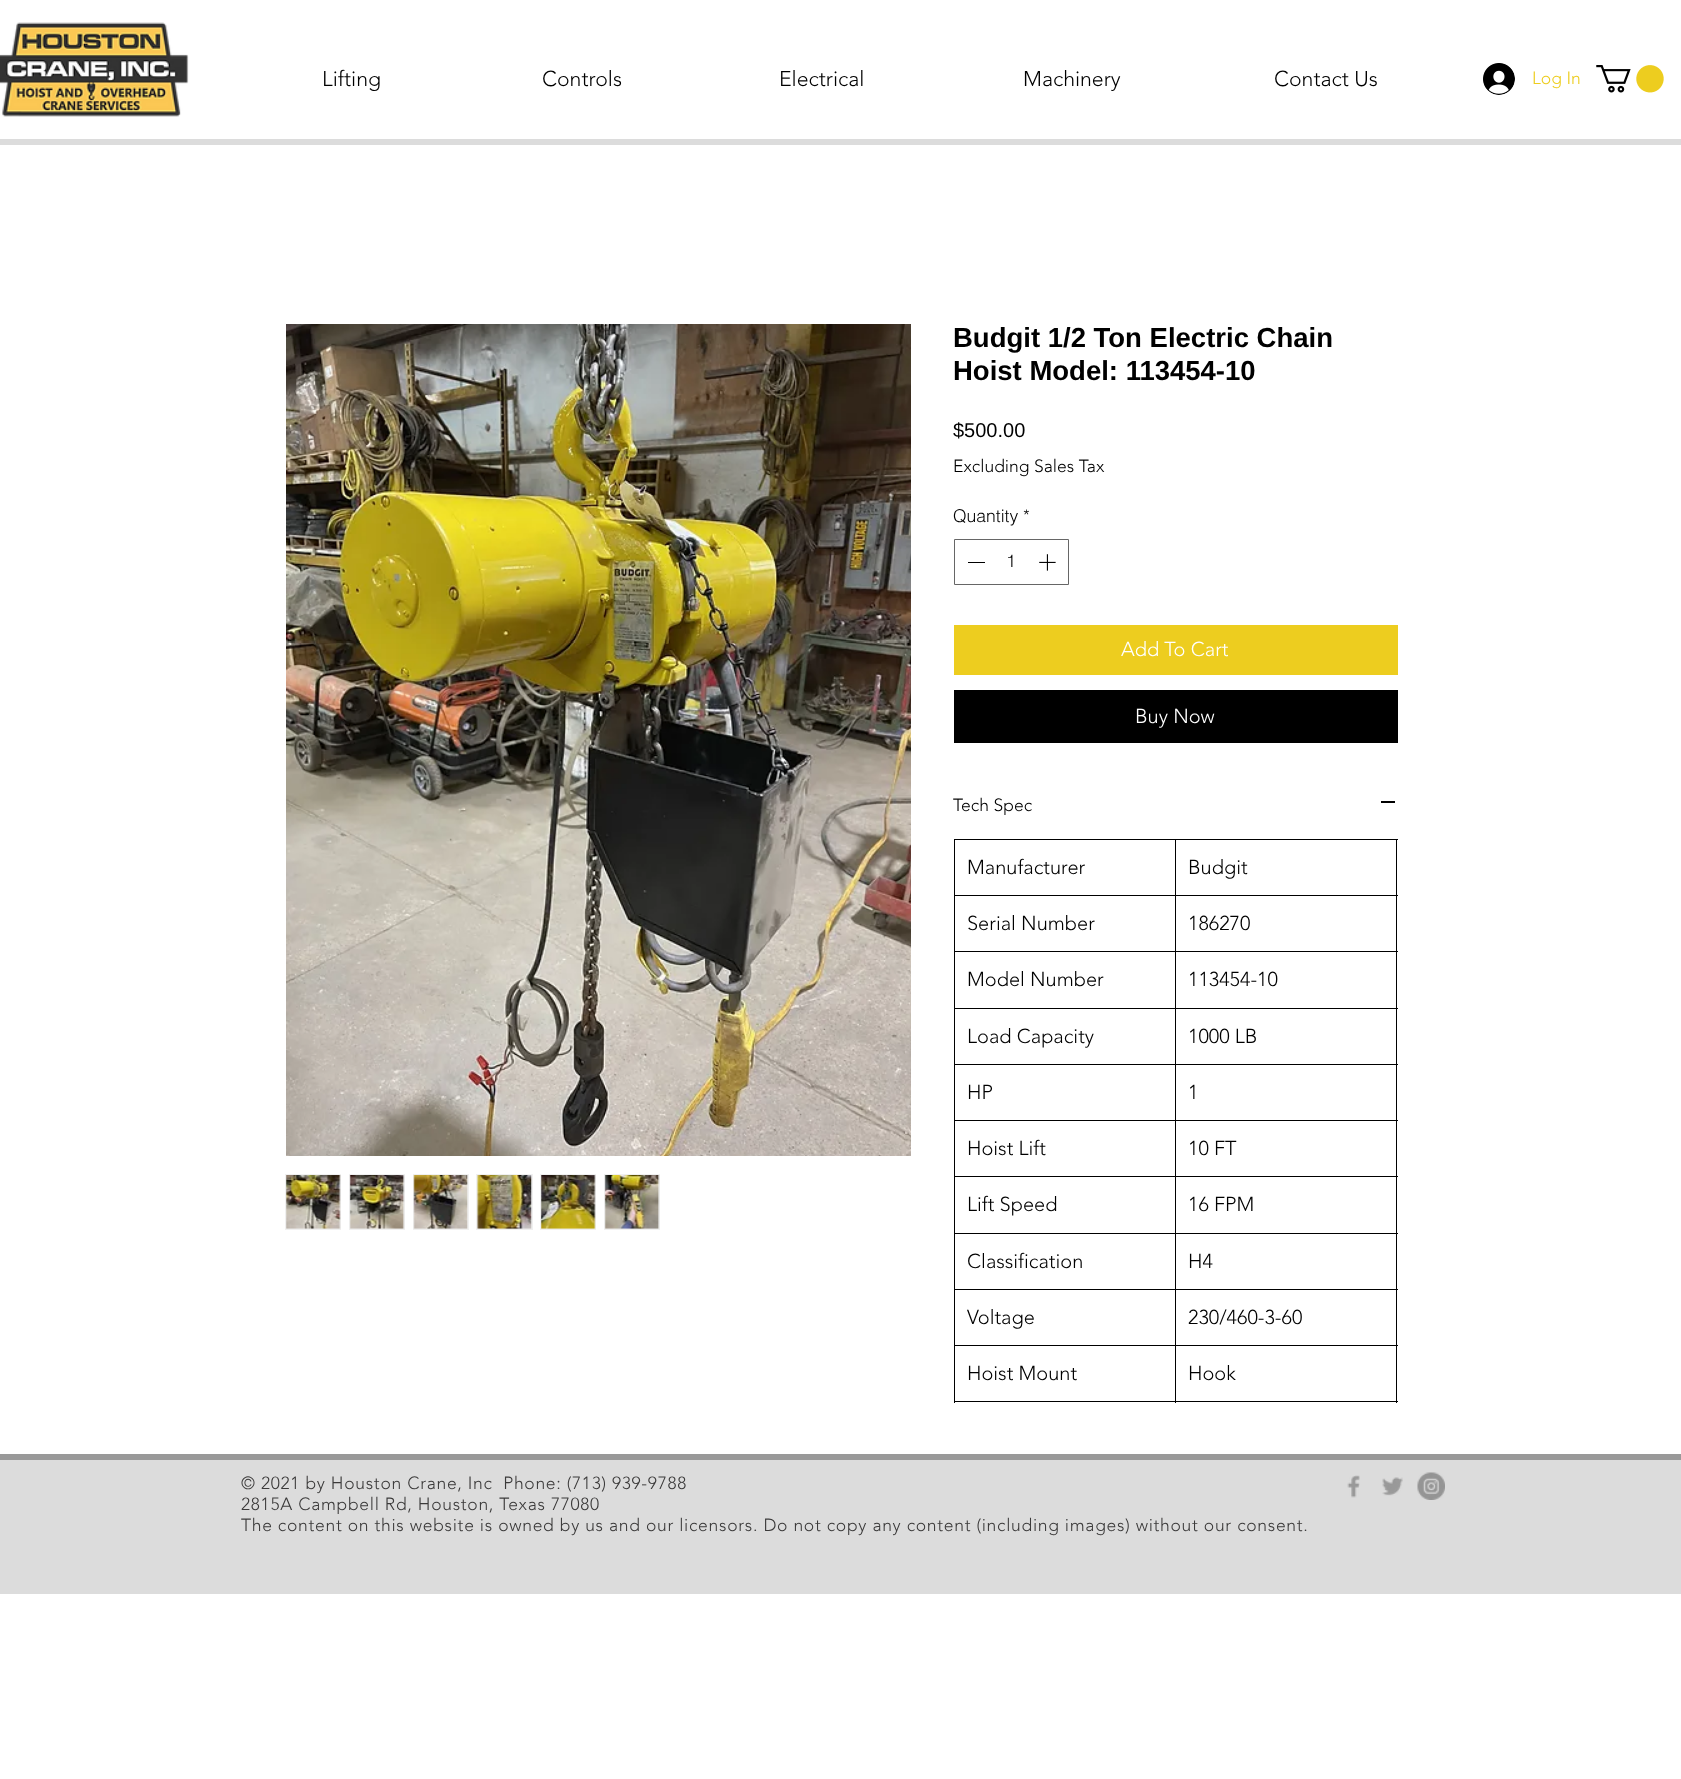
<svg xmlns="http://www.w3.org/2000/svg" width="1681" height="1779">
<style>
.a{font:300 21.25px 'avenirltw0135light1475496';fill:#000}
.b{font:300 17.5px 'avenirltw0135light1475496';fill:#edcd1f}
.c{font:bold 27.5px Liberation Sans;fill:#000}
.d{font:20px Liberation Sans;fill:#000}
.e{font:300 17.5px 'avenirltw0135light1475496';fill:#000}
.f{font:300 17.5px helvetica;fill:#000}
.g{font:300 20px 'avenirltw0135light1475496';fill:#fff}
.h{font:300 20px 'avenirltw0135light1475496';fill:#000}
.i{font:300 17.5px 'avenirltw0135light1475496';letter-spacing:0.7px;fill:#3b3a3a}
</style>
<rect width="100%" height="100%" fill="#fff"/>
<image href="1.png" x="0" y="22" width="189" height="95"/>
<image href="2.png" x="1483" y="63" width="32" height="32"/>
<image href="3.png" x="1596" y="65" width="68" height="28"/>
<path fill="#dcdcdc" d="M0 139h1681v6H0z"/>
<image href="4.png" x="286" y="324" width="625" height="832"/>
<path fill="#f0f0f0" d="M285 1174h56v56H285z"/>
<image href="5.png" x="286" y="1175" width="55" height="54"/>
<path fill="#f0f0f0" d="M349 1174h56v56H349z"/>
<image href="6.png" x="349" y="1175" width="56" height="54"/>
<path fill="#f0f0f0" d="M413 1174h56v56H413z"/>
<image href="7.png" x="413" y="1175" width="55" height="54"/>
<path fill="#f0f0f0" d="M476 1174h57v56H476z"/>
<image href="8.png" x="477" y="1175" width="55" height="54"/>
<path fill="#f0f0f0" d="M540 1174h56v56H540z"/>
<image href="9.png" x="541" y="1175" width="55" height="54"/>
<path fill="#f0f0f0" d="M604 1174h56v56H604z"/>
<image href="10.png" x="604" y="1175" width="56" height="54"/>
<path fill="none" stroke="#666" d="M954.5 539.5h114v45H954.5z"/>
<path fill="#000" d="M968 562h17v1H968z"/>
<image href="11.png" x="1039" y="554" width="17" height="17"/>
<path fill="#edcd1f" d="M954 625h444v50H954z"/>
<path fill="#000" d="M954 690h444v53H954z"/>
<path fill="#000" d="M1381 801h14v2H1381z"/>
<path fill="#000" d="M1175 839h223v1H1175z"/>
<path fill="#000" d="M1175 895h223v1H1175z"/>
<path fill="#000" d="M1175 951h223v1H1175z"/>
<path fill="#000" d="M1175 1008h223v1H1175z"/>
<path fill="#000" d="M1175 1064h223v1H1175z"/>
<path fill="#000" d="M1175 1120h223v1H1175z"/>
<path fill="#000" d="M1175 1176h223v1H1175z"/>
<path fill="#000" d="M1175 1233h223v1H1175z"/>
<path fill="#000" d="M1175 1289h223v1H1175z"/>
<path fill="#000" d="M1175 1345h223v1H1175z"/>
<path fill="#000" d="M1396 1345h1v58H1396z"/>
<path fill="#000" d="M1175 1401h223v1H1175z"/>
<path fill="#000" d="M1175 1345h1v58H1175z"/>
<path fill="#000" d="M954 1345h222v1H954z"/>
<path fill="#000" d="M1175 1289h1v57H1175z"/>
<path fill="#000" d="M954 1289h222v1H954z"/>
<path fill="#000" d="M1175 1233h1v57H1175z"/>
<path fill="#000" d="M954 1233h222v1H954z"/>
<path fill="#000" d="M1175 1176h1v58H1175z"/>
<path fill="#000" d="M954 1176h222v1H954z"/>
<path fill="#000" d="M1175 1120h1v58H1175z"/>
<path fill="#000" d="M954 1120h222v1H954z"/>
<path fill="#000" d="M1175 1064h1v57H1175z"/>
<path fill="#000" d="M954 1064h222v1H954z"/>
<path fill="#000" d="M1175 1008h1v57H1175z"/>
<path fill="#000" d="M954 1008h222v1H954z"/>
<path fill="#000" d="M1175 951h1v58H1175z"/>
<path fill="#000" d="M954 951h222v1H954z"/>
<path fill="#000" d="M1175 895h1v58H1175z"/>
<path fill="#000" d="M954 895h222v1H954z"/>
<path fill="#000" d="M1175 839h1v57H1175z"/>
<path fill="#000" d="M954 839h222v1H954z"/>
<path fill="#000" d="M954 1401h222v1H954z"/>
<path fill="#000" d="M954 1345h1v58H954z"/>
<path fill="#000" d="M954 1289h1v57H954z"/>
<path fill="#000" d="M954 1233h1v57H954z"/>
<path fill="#000" d="M954 1176h1v58H954z"/>
<path fill="#000" d="M954 1120h1v58H954z"/>
<path fill="#000" d="M954 1064h1v57H954z"/>
<path fill="#000" d="M954 1008h1v57H954z"/>
<path fill="#000" d="M954 951h1v58H954z"/>
<path fill="#000" d="M954 895h1v58H954z"/>
<path fill="#000" d="M954 839h1v57H954z"/>
<path fill="#000" d="M1396 1289h1v57H1396z"/>
<path fill="#000" d="M1396 1233h1v57H1396z"/>
<path fill="#000" d="M1396 1176h1v58H1396z"/>
<path fill="#000" d="M1396 1120h1v58H1396z"/>
<path fill="#000" d="M1396 1064h1v57H1396z"/>
<path fill="#000" d="M1396 1008h1v57H1396z"/>
<path fill="#000" d="M1396 951h1v58H1396z"/>
<path fill="#000" d="M1396 895h1v58H1396z"/>
<path fill="#000" d="M1396 839h1v57H1396z"/>
<path fill="#dcdcdc" d="M0 1460h1681v134H0z"/>
<path fill="#999" d="M0 1454h1681v6H0z"/>
<image href="12.png" x="1347" y="1475" width="13" height="23"/>
<image href="13.png" x="1382" y="1477" width="21" height="19"/>
<image href="14.png" x="1417" y="1472" width="28" height="28"/>
<text class="a" x="322" y="86">Lifting</text>
<text class="a" x="542" y="86">Controls</text>
<text class="a" x="779" y="86">Electrical</text>
<text class="a" x="1023" y="86">Machinery</text>
<text class="a" x="1274" y="86">Contact Us</text>
<text class="b" x="1532" y="84">Log In</text>
<text class="c" x="953" y="347">Budgit 1/2 Ton Electric Chain</text>
<text class="c" x="953" y="380">Hoist Model: 113454-10</text>
<text class="d" x="953" y="437">$500.00</text>
<text class="e" x="953" y="472">Excluding Sales Tax</text>
<text class="f" x="953" y="522">Quantity *</text>
<text class="f" x="1006" y="567">1</text>
<text class="g" x="1121" y="656">Add To Cart</text>
<text class="g" x="1135" y="723">Buy Now</text>
<text class="e" x="953" y="811">Tech Spec</text>
<text class="h" x="967" y="874">Manufacturer</text>
<text class="h" x="1188" y="874">Budgit</text>
<text class="h" x="967" y="930">Serial Number</text>
<text class="h" x="1188" y="930">186270</text>
<text class="h" x="967" y="986">Model Number</text>
<text class="h" x="1188" y="986">113454-10</text>
<text class="h" x="967" y="1043">Load Capacity</text>
<text class="h" x="1188" y="1043">1000 LB</text>
<text class="h" x="967" y="1099">HP</text>
<text class="h" x="1188" y="1099">1</text>
<text class="h" x="967" y="1155">Hoist Lift</text>
<text class="h" x="1188" y="1155">10 FT</text>
<text class="h" x="967" y="1211">Lift Speed</text>
<text class="h" x="1188" y="1211">16 FPM</text>
<text class="h" x="967" y="1268">Classification</text>
<text class="h" x="1188" y="1268">H4</text>
<text class="h" x="967" y="1324">Voltage</text>
<text class="h" x="1188" y="1324">230/460-3-60</text>
<text class="h" x="967" y="1380">Hoist Mount</text>
<text class="h" x="1188" y="1380">Hook</text>
<text class="i" xml:space="preserve" x="241" y="1489">© 2021 by Houston Crane, Inc  Phone: (713) 939-9788</text>
<text class="i" x="241" y="1510">2815A Campbell Rd, Houston, Texas 77080</text>
<text class="i" x="241" y="1531">The content on this website is owned by us and our licensors. Do not copy any content (including images) without our consent.</text>
</svg>
